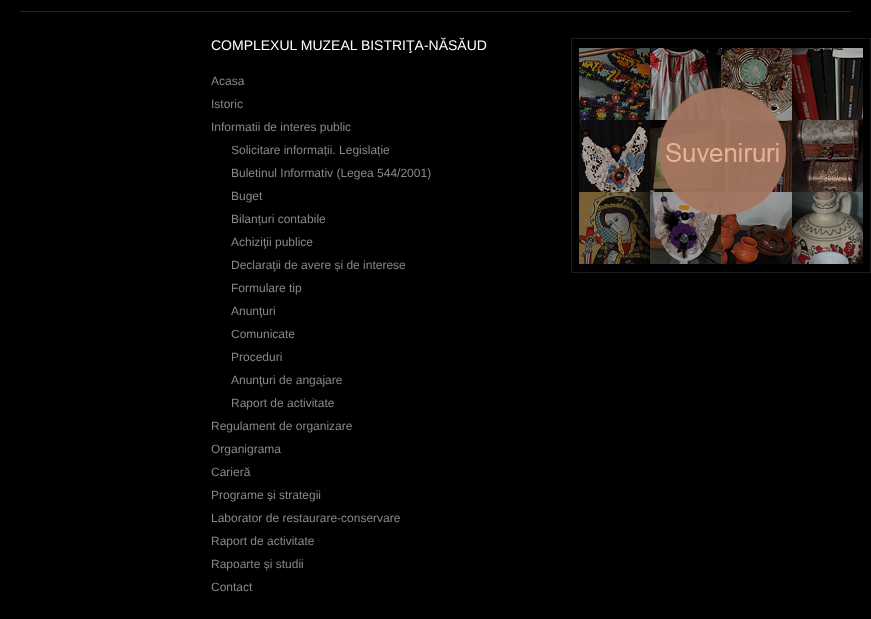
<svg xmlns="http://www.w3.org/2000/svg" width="871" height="619">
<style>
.a{font:14px Liberation Sans;fill:#fff}
.b{font:12px Liberation Sans;fill:#888}
</style>
<rect width="100%" height="100%" fill="#000"/>
<path fill="#222" d="M20 11h831v1H20z"/>
<image href="1.png" x="571" y="38" width="300" height="235"/>
<text class="a" x="211" y="50">COMPLEXUL MUZEAL BISTRIŢA-NĂSĂUD</text>
<text class="b" x="211" y="85">Acasa</text>
<text class="b" x="211" y="108">Istoric</text>
<text class="b" x="211" y="131">Informatii de interes public</text>
<text class="b" x="231" y="154">Solicitare informații. Legislație</text>
<text class="b" x="231" y="177">Buletinul Informativ (Legea 544/2001)</text>
<text class="b" x="231" y="200">Buget</text>
<text class="b" x="231" y="223">Bilanțuri contabile</text>
<text class="b" x="231" y="246">Achiziţii publice</text>
<text class="b" x="231" y="269">Declaraţii de avere și de interese</text>
<text class="b" x="231" y="292">Formulare tip</text>
<text class="b" x="231" y="315">Anunţuri</text>
<text class="b" x="231" y="338">Comunicate</text>
<text class="b" x="231" y="361">Proceduri</text>
<text class="b" x="231" y="384">Anunţuri de angajare</text>
<text class="b" x="231" y="407">Raport de activitate</text>
<text class="b" x="211" y="430">Regulament de organizare</text>
<text class="b" x="211" y="453">Organigrama</text>
<text class="b" x="211" y="476">Carieră</text>
<text class="b" x="211" y="499">Programe și strategii</text>
<text class="b" x="211" y="522">Laborator de restaurare-conservare</text>
<text class="b" x="211" y="545">Raport de activitate</text>
<text class="b" x="211" y="568">Rapoarte și studii</text>
<text class="b" x="211" y="591">Contact</text>
</svg>
